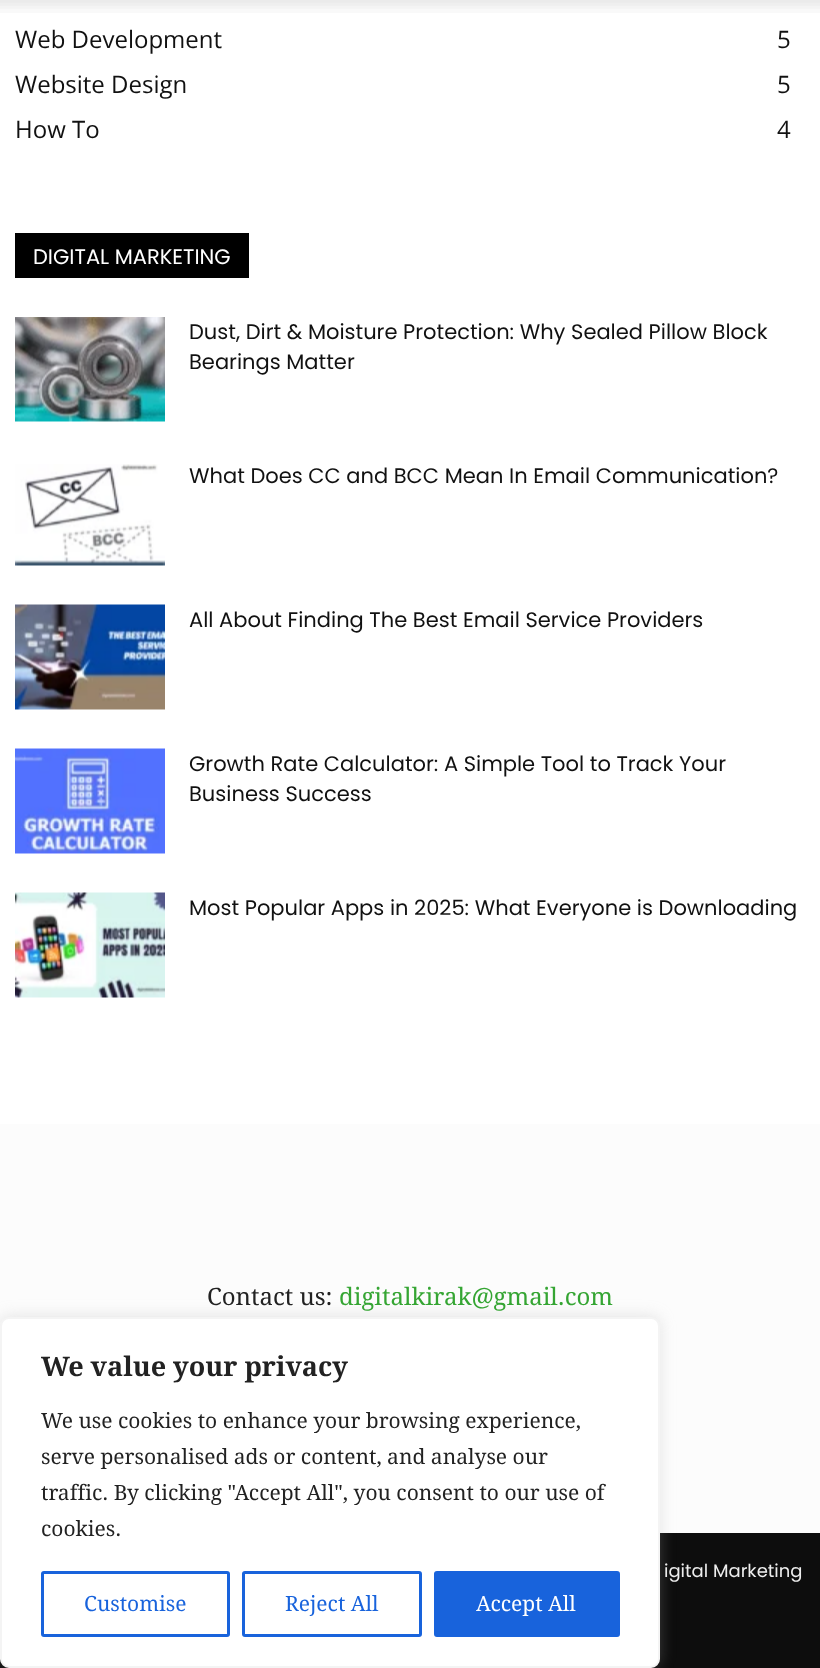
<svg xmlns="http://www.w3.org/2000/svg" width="820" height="1668">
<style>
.a{font:24px Open Sans;fill:#111}
.b{font:21px Poppins;fill:#fff}
.c{font:21px Poppins;fill:#111}
.d{font:24px Droid Serif;fill:#222}
.e{font:24px Droid Serif;fill:#35a533}
.f{font:18px Poppins;fill:#ededed}
.g{font:bold 27px Droid Serif;fill:#222}
.h{font:21px Droid Serif;fill:#222}
.i{font:21px Droid Serif;fill:#1863dc}
.j{font:21px Droid Serif;fill:#fff}
</style>
<rect width="100%" height="100%" fill="#fff"/>
<image href="1.png" x="0" y="0" width="820" height="13"/>
<path fill="#000" d="M15 233h234v45H15z"/>
<image href="2.png" x="15" y="317" width="150" height="105"/>
<image href="3.png" x="15" y="464" width="150" height="102"/>
<image href="4.png" x="15" y="604" width="150" height="106"/>
<image href="5.png" x="15" y="748" width="150" height="106"/>
<image href="6.png" x="15" y="892" width="150" height="106"/>
<path fill="#fcfcfc" d="M0 1124h820v409H0z"/>
<path fill="#0d0d0d" d="M0 1533h820v135H0z"/>
<rect fill="#acabab4d" filter="blur(7.5px)" y="1316" width="660" height="351" rx="9"/>
<rect fill="#fff" stroke="#f4f4f4" stroke-width="2" x="1" y="1318" width="658" height="349" rx="8"/>
<rect fill="none" stroke="#1863dc" stroke-width="3" x="42.5" y="1572.5" width="186" height="63" rx="1.5"/>
<rect fill="none" stroke="#1863dc" stroke-width="3" x="243.5" y="1572.5" width="177" height="63" rx="1.5"/>
<rect fill="#1863dc" stroke="#1863dc" stroke-width="3" x="435.5" y="1572.5" width="183" height="63" rx="1.5"/>
<text class="a" x="15" y="48">Web Development</text>
<text class="a" x="777" y="48">5</text>
<text class="a" x="15" y="93">Website Design</text>
<text class="a" x="777" y="93">5</text>
<text class="a" x="15" y="138">How To</text>
<text class="a" x="777" y="138">4</text>
<text class="b" x="33" y="264">DIGITAL MARKETING</text>
<text class="c" x="189" y="339">Dust, Dirt &amp; Moisture Protection: Why Sealed Pillow Block</text>
<text class="c" x="189" y="369">Bearings Matter</text>
<text class="c" x="189" y="483">What Does CC and BCC Mean In Email Communication?</text>
<text class="c" x="189" y="627">All About Finding The Best Email Service Providers</text>
<text class="c" x="189" y="771">Growth Rate Calculator: A Simple Tool to Track Your</text>
<text class="c" x="189" y="801">Business Success</text>
<text class="c" x="189" y="915">Most Popular Apps in 2025: What Everyone is Downloading</text>
<text class="d" x="207" y="1305">Contact us:</text>
<text class="e" x="339" y="1305">digitalkirak@gmail.com</text>
<text class="f" x="664" y="1577">igital Marketing</text>
<text class="g" x="41" y="1376">We value your privacy</text>
<text class="h" x="41" y="1428">We use cookies to enhance your browsing experience,</text>
<text class="h" x="41" y="1464">serve personalised ads or content, and analyse our</text>
<text class="h" x="41" y="1500">traffic. By clicking "Accept All", you consent to our use of</text>
<text class="h" x="41" y="1536">cookies.</text>
<text class="i" x="84" y="1611">Customise</text>
<text class="i" x="285" y="1611">Reject All</text>
<text class="j" x="476" y="1611">Accept All</text>
</svg>
